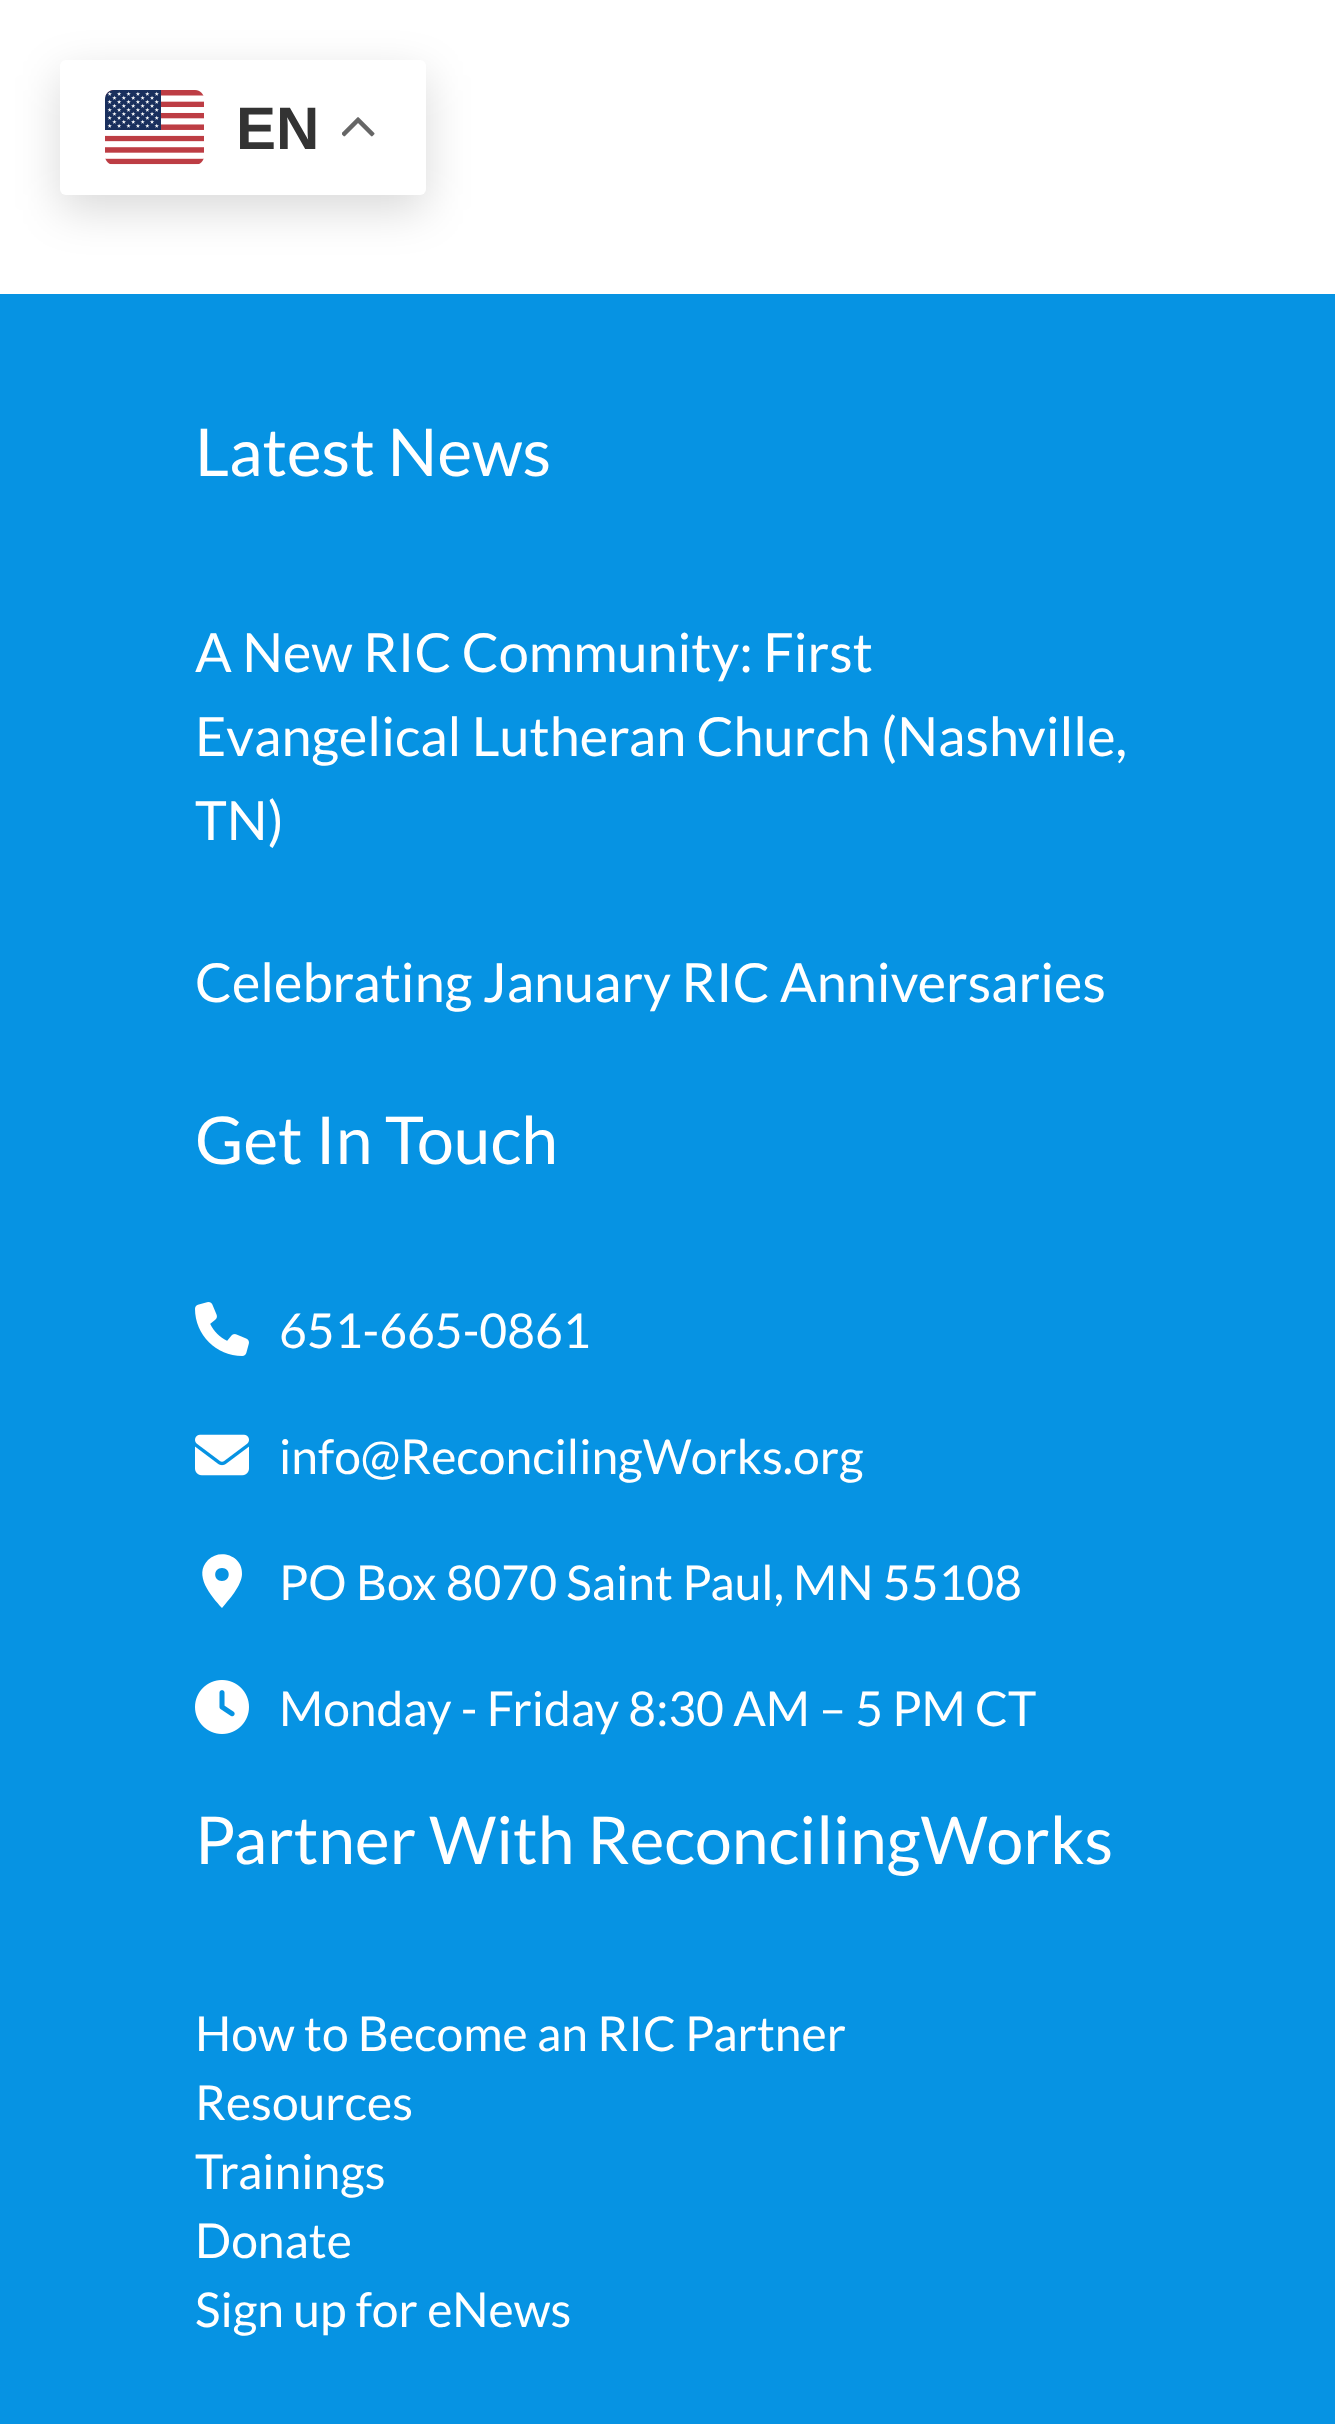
<svg xmlns="http://www.w3.org/2000/svg" width="1335" height="2424">
<style>
.a{font:bold 60px Liberation Sans;fill:#333}
.b{font:66px Lato;fill:#fff}
.c{font:54px Lato;fill:#fff}
.d{font:48px Lato;fill:#fff}
</style>
<rect width="100%" height="100%" fill="#fff"/>
<rect fill="#00000026" filter="blur(22.5px)" x="60" y="75" width="366" height="135" rx="6"/>
<rect fill="#fff" x="60" y="60" width="366" height="135" rx="6"/>
<image href="1.png" x="105" y="90" width="99" height="75"/>
<image href="2.png" x="342" y="117" width="33" height="20"/>
<path fill="#0693e3" d="M0 294h1335v2130H0z"/>
<image href="3.png" x="195" y="1302" width="54" height="54"/>
<image href="4.png" x="195" y="1434" width="54" height="42"/>
<path fill="#fff" d="M222 1608c7-8 20-23 20-34c1-18-22-26-34-14c-15 15 3 36 14 48zm0-40c9 0 9 13 0 13c-9 0-9-13 0-13z"/>
<image href="5.png" x="195" y="1680" width="54" height="54"/>
<text class="a" x="236" y="149">EN</text>
<text class="b" x="195" y="476">Latest News</text>
<text class="c" x="195" y="672">A New RIC Community: First</text>
<text class="c" x="195" y="756">Evangelical Lutheran Church (Nashville,</text>
<text class="c" x="195" y="840">TN)</text>
<text class="c" x="195" y="1002">Celebrating January RIC Anniversaries</text>
<text class="b" x="195" y="1164">Get In Touch</text>
<text class="d" x="279" y="1348">651-665-0861</text>
<text class="d" x="279" y="1474">info@ReconcilingWorks.org</text>
<text class="d" x="279" y="1600">PO Box 8070 Saint Paul, MN 55108</text>
<text class="d" x="279" y="1726">Monday - Friday 8:30 AM – 5 PM CT</text>
<text class="b" x="195" y="1864">Partner With ReconcilingWorks</text>
<text class="d" x="195" y="2051">How to Become an RIC Partner</text>
<text class="d" x="195" y="2120">Resources</text>
<text class="d" x="195" y="2189">Trainings</text>
<text class="d" x="195" y="2258">Donate</text>
<text class="d" x="195" y="2327">Sign up for eNews</text>
</svg>
